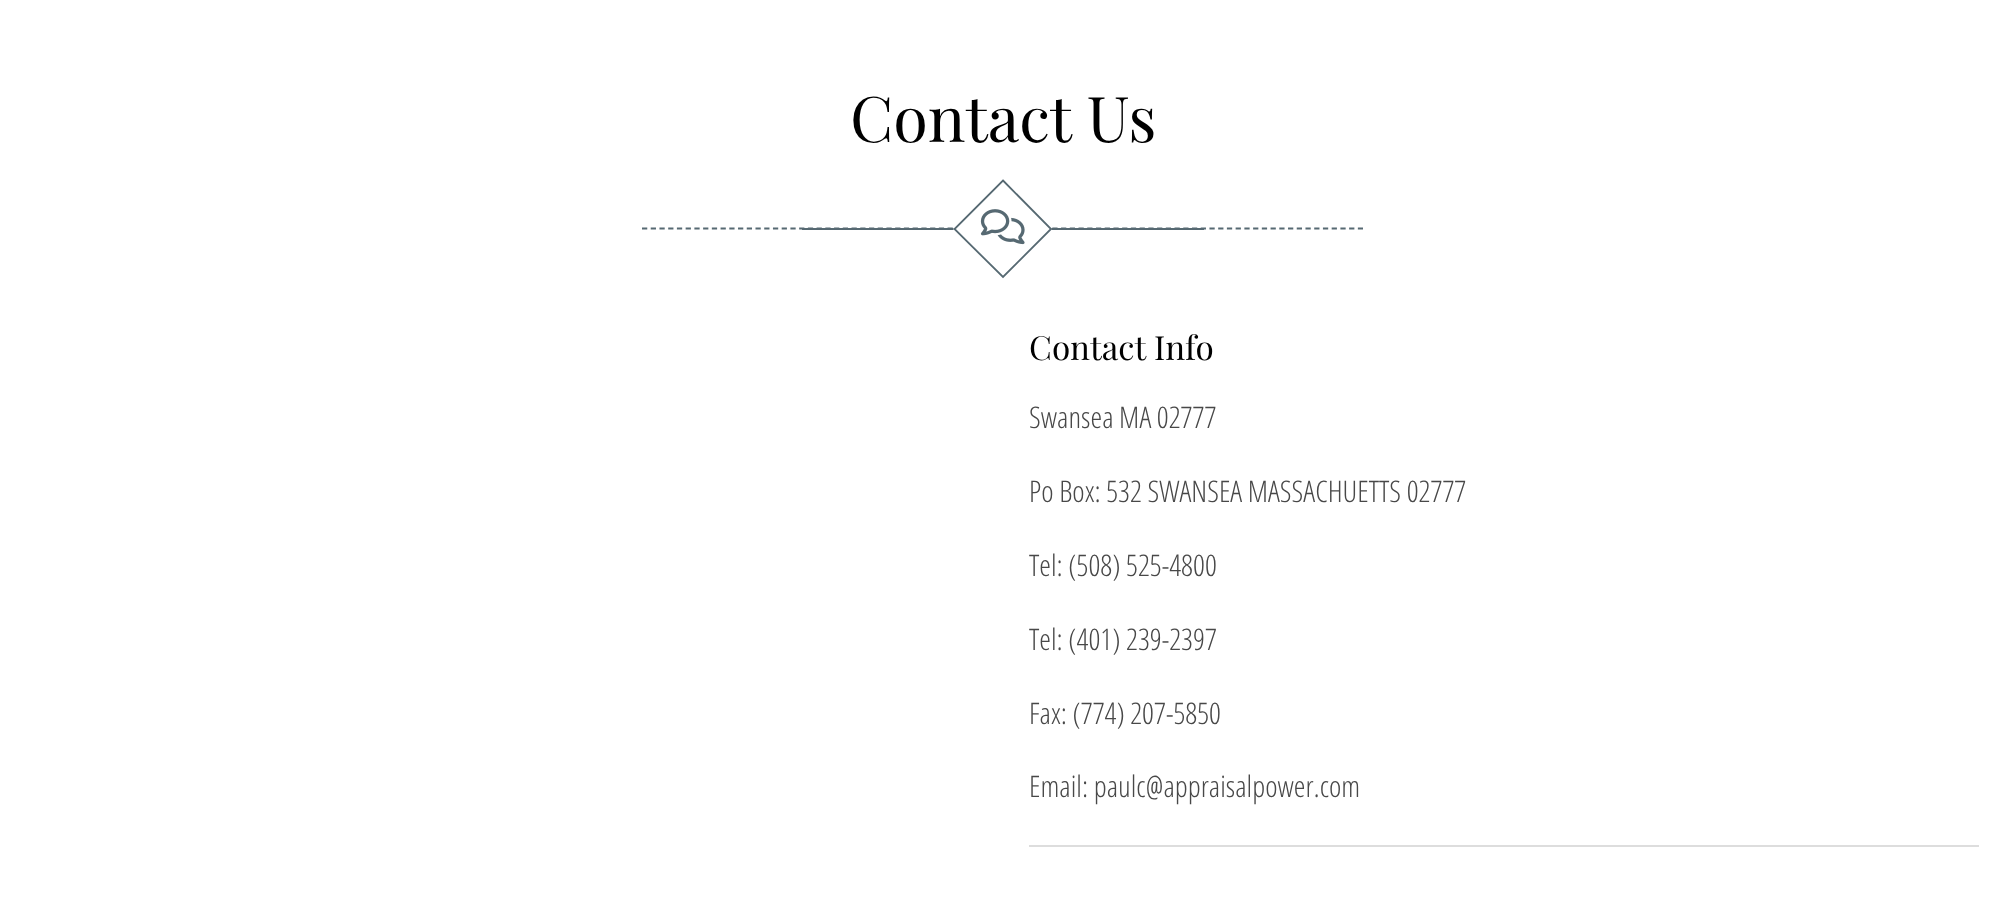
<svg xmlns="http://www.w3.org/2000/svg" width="2005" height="914">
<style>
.a{font:63px Playfair Display;fill:#000}
.b{font:33.25px Playfair Display;fill:#000}
.c{font:300 29.75px Open Sans Condensed;fill:#484848}
</style>
<rect width="100%" height="100%" fill="#fff"/>
<path fill="#566972" d="M802 228h402v2H802z"/>
<path fill="none" stroke="#566972" stroke-width="1.8" stroke-dasharray="5.25 3.48" d="M642 228.5h721"/>
<path fill="#fff" d="M1003 179l49 50l-49 49l-50-49z"/>
<path fill="none" stroke="#566972" stroke-width="1.8" d="M1003 180.5l48 48.5l-48 48l-48.5-48z"/>
<image href="1.png" x="980" y="209" width="45" height="36"/>
<path fill="#ddd" d="M1029 845h950v2H1029z"/>
<text class="a" x="850" y="142">Contact Us</text>
<text class="b" x="1029" y="360">Contact Info</text>
<text class="c" x="1029" y="428">Swansea MA 02777</text>
<text class="c" x="1029" y="502">Po Box: 532 SWANSEA MASSACHUETTS 02777</text>
<text class="c" x="1029" y="576">Tel: (508) 525-4800</text>
<text class="c" x="1029" y="650">Tel: (401) 239-2397</text>
<text class="c" x="1029" y="724">Fax: (774) 207-5850</text>
<text class="c" x="1029" y="797">Email: paulc@appraisalpower.com</text>
</svg>
